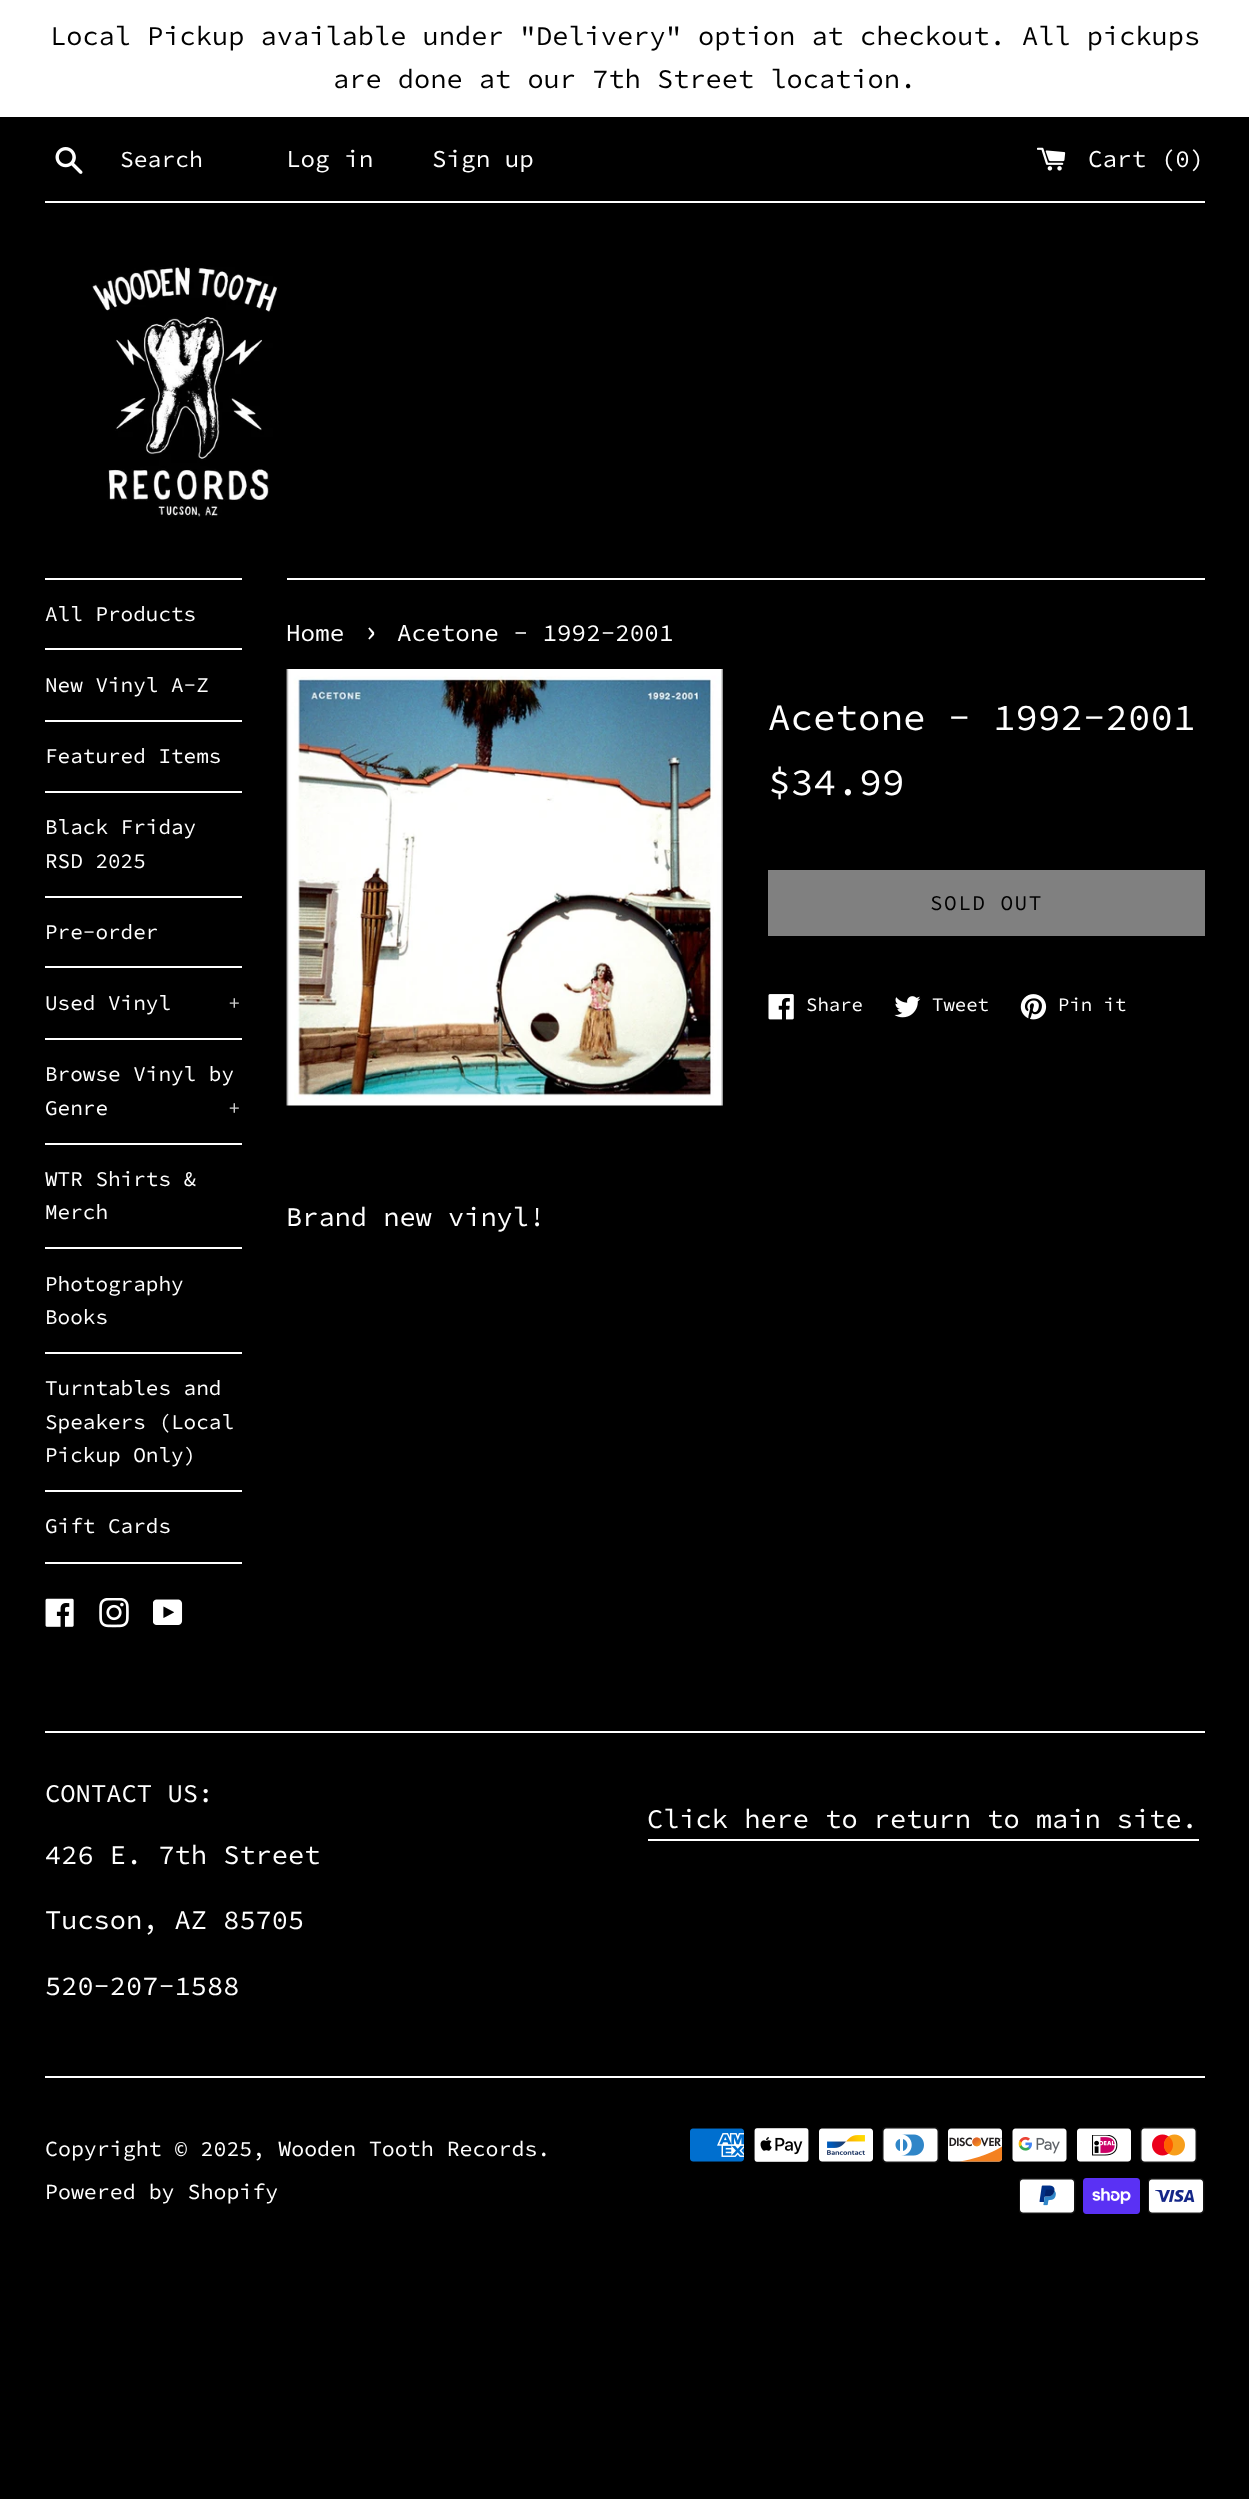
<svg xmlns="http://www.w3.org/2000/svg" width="1249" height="2499">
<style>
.a{font:27px Source Code Pro;fill:#000}
.b{font:23px Source Code Pro;fill:#fff}
.c{font:24.25px Source Code Pro;fill:#fff}
.d{font:21px Source Code Pro;fill:#fff}
.e{font:21px Source Code Pro;fill:#ccc}
.f{font:30px Source Code Pro;fill:#fff}
.g{font:37.5px Source Code Pro;fill:#fff}
.h{font:38px Source Code Pro;fill:#fff}
.i{font:21px Source Code Pro;letter-spacing:1.5px;fill:#000}
.j{font:19px Source Code Pro;fill:#fff}
.k{font:27px Source Code Pro;fill:#fff}
.l{font:25.5px Source Code Pro;fill:#fff}
.m{font:21.6px Source Code Pro;fill:#fff}
</style>
<rect width="100%" height="100%" fill="#000"/>
<path fill="#fff" d="M0 0h1249v117H0z"/>
<image href="1.png" x="55" y="147" width="28" height="27"/>
<image href="2.png" x="1037" y="147" width="29" height="24"/>
<path fill="#fff" d="M45 201h1160v2H45z"/>
<image href="3.png" x="92" y="267" width="186" height="250"/>
<path fill="#fff" d="M45 578h197v2H45z"/>
<path fill="#fff" d="M45 648h197v2H45z"/>
<path fill="#fff" d="M45 720h197v2H45z"/>
<path fill="#fff" d="M45 791h197v2H45z"/>
<path fill="#fff" d="M45 896h197v2H45z"/>
<path fill="#fff" d="M45 966h197v2H45z"/>
<path fill="#fff" d="M45 1038h197v2H45z"/>
<path fill="#fff" d="M45 1143h197v2H45z"/>
<path fill="#fff" d="M45 1247h197v2H45z"/>
<path fill="#fff" d="M45 1352h197v2H45z"/>
<path fill="#fff" d="M45 1490h197v2H45z"/>
<path fill="#fff" d="M45 1562h197v2H45z"/>
<image href="4.png" x="45" y="1598" width="29" height="29"/>
<image href="5.png" x="99" y="1598" width="30" height="30"/>
<image href="6.png" x="153" y="1599" width="30" height="26"/>
<path fill="#fff" d="M287 578h918v2H287z"/>
<image href="7.png" x="286" y="669" width="437" height="437"/>
<path fill="#808080" d="M768 870h437v66H768z"/>
<image href="8.png" x="768" y="994" width="26" height="26"/>
<image href="9.png" x="894" y="996" width="27" height="22"/>
<image href="10.png" x="1020" y="994" width="27" height="26"/>
<path fill="#fff" d="M45 1731h1160v2H45z"/>
<path fill="#fff" d="M648 1839h551v2H648z"/>
<path fill="#fff" d="M45 2076h1160v2H45z"/>
<image href="11.png" x="690" y="2128" width="54" height="34"/>
<image href="12.png" x="754" y="2128" width="55" height="34"/>
<image href="13.png" x="819" y="2128" width="54" height="34"/>
<image href="14.png" x="882" y="2127" width="57" height="36"/>
<image href="15.png" x="948" y="2128" width="55" height="34"/>
<image href="16.png" x="1012" y="2128" width="55" height="34"/>
<image href="17.png" x="1077" y="2128" width="54" height="34"/>
<image href="18.png" x="1140" y="2127" width="57" height="36"/>
<image href="19.png" x="1019" y="2178" width="57" height="36"/>
<image href="20.png" x="1083" y="2178" width="57" height="36"/>
<image href="21.png" x="1148" y="2178" width="57" height="36"/>
<text class="a" x="50" y="45">Local Pickup available under "Delivery" option at checkout. All pickups</text>
<text class="a" x="333" y="88">are done at our 7th Street location.</text>
<text class="b" x="120" y="167">Search</text>
<text class="c" x="286" y="167">Log in</text>
<text class="c" x="432" y="167">Sign up</text>
<text class="c" x="1088" y="167">Cart (0)</text>
<text class="d" x="45" y="621">All Products</text>
<text class="d" x="45" y="692">New Vinyl A-Z</text>
<text class="d" x="45" y="763">Featured Items</text>
<text class="d" x="45" y="834">Black Friday</text>
<text class="d" x="45" y="868">RSD 2025</text>
<text class="d" x="45" y="939">Pre-order</text>
<text class="d" x="45" y="1010">Used Vinyl</text>
<text class="e" x="228" y="1010">+</text>
<text class="d" x="45" y="1081">Browse Vinyl by</text>
<text class="d" x="45" y="1115">Genre</text>
<text class="e" x="228" y="1115">+</text>
<text class="d" x="45" y="1186">WTR Shirts &amp;</text>
<text class="d" x="45" y="1219">Merch</text>
<text class="d" x="45" y="1291">Photography</text>
<text class="d" x="45" y="1324">Books</text>
<text class="d" x="45" y="1395">Turntables and</text>
<text class="d" x="45" y="1429">Speakers (Local</text>
<text class="d" x="45" y="1462">Pickup Only)</text>
<text class="d" x="45" y="1533">Gift Cards</text>
<text class="c" x="286" y="641">Home</text>
<text class="f" x="362" y="641">›</text>
<text class="c" x="397" y="641">Acetone - 1992-2001</text>
<text class="g" x="768" y="730">Acetone - 1992-2001</text>
<text class="h" x="768" y="795">$34.99</text>
<text class="i" x="930" y="910">SOLD OUT</text>
<text class="j" x="806" y="1011">Share</text>
<text class="j" x="932" y="1011">Tweet</text>
<text class="j" x="1058" y="1011">Pin it</text>
<text class="k" x="286" y="1226">Brand new vinyl!</text>
<text class="l" x="45" y="1802">CONTACT US:</text>
<text class="k" x="45" y="1864">426 E. 7th Street</text>
<text class="k" x="45" y="1929">Tucson, AZ 85705</text>
<text class="k" x="45" y="1995">520-207-1588</text>
<text class="k" x="647" y="1828">Click here to return to main site.</text>
<text class="m" x="45" y="2156">Copyright © 2025, Wooden Tooth Records.</text>
<text class="m" x="45" y="2199">Powered by Shopify</text>
</svg>
